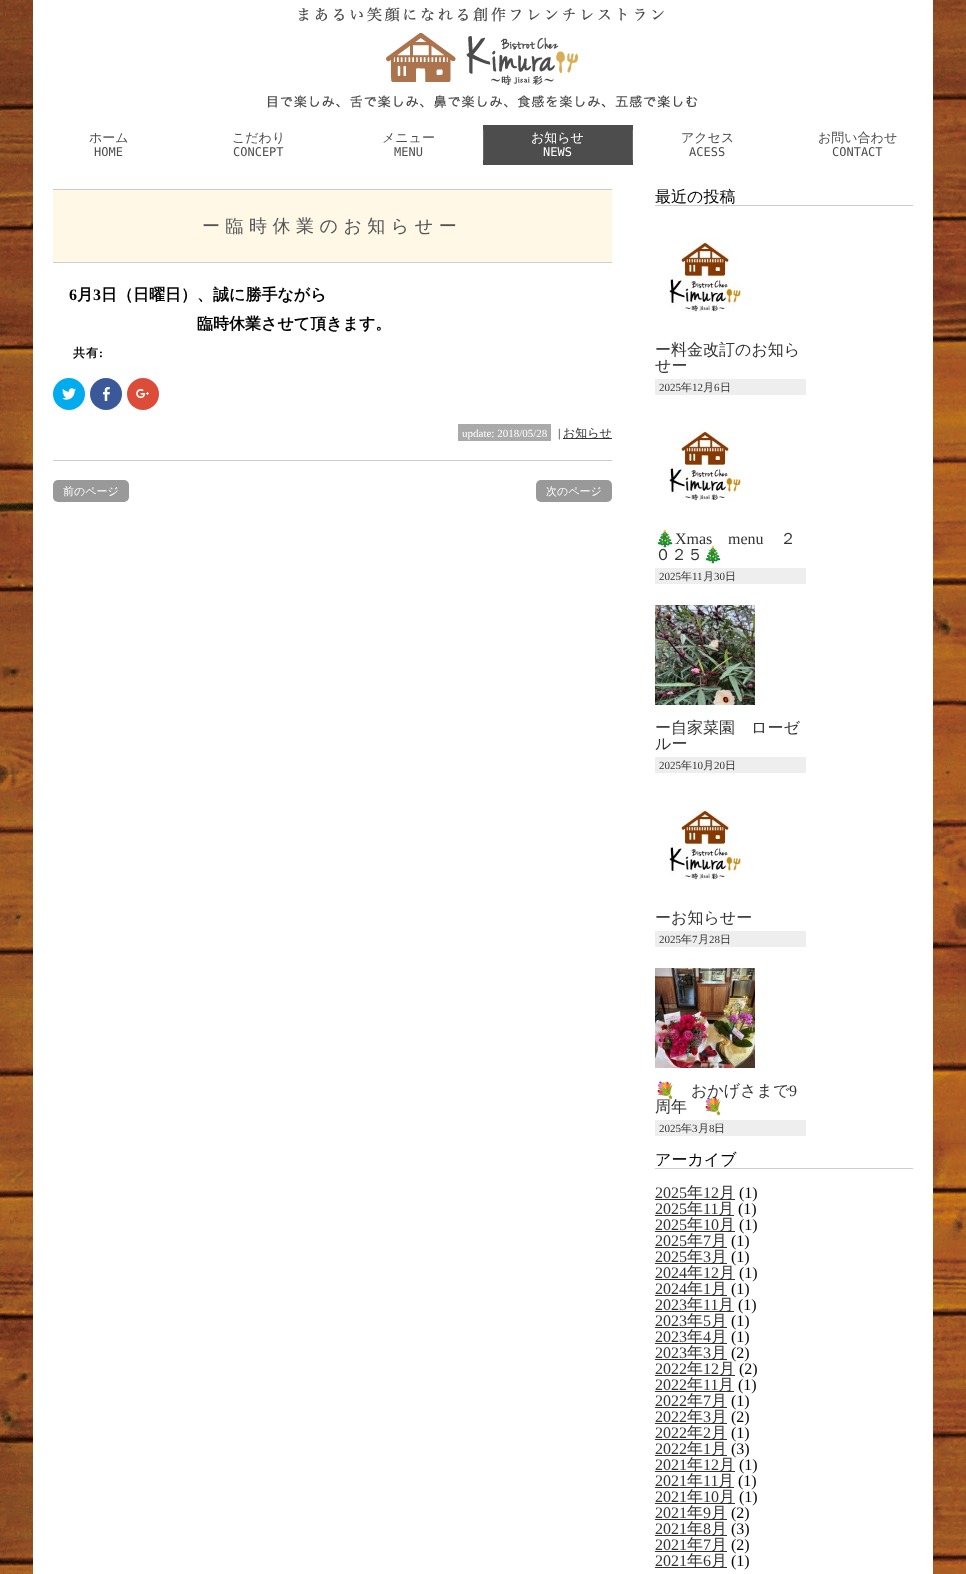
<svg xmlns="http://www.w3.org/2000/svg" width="966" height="1574">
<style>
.a{font:500 13px WenQuanYi Zen Hei;fill:#4d4d4d}
.b{font:12px DejaVu Sans Mono;fill:#4d4d4d}
.c{font:500 13px WenQuanYi Zen Hei;fill:#fff}
.d{font:12px DejaVu Sans Mono;fill:#fff}
.e{font:500 18px WenQuanYi Zen Hei;letter-spacing:5.5px;fill:#555}
.f{font:bold 16px Liberation Serif;fill:#000}
.g{font:bold 16px WenQuanYi Zen Hei;fill:#000}
.h{font:bold 12px WenQuanYi Zen Hei;letter-spacing:1px;fill:#000}
.i{font:bold 12px Liberation Serif;letter-spacing:1px;fill:#000}
.j{font:11px Liberation Serif;fill:#fff}
.k{font:12px Liberation Serif;fill:#000}
.l{font:500 12px WenQuanYi Zen Hei;fill:#333}
.m{font:500 11px WenQuanYi Zen Hei;fill:#fff}
.n{font:500 16px WenQuanYi Zen Hei;fill:#000}
.o{font:500 16px WenQuanYi Zen Hei;fill:#333}
.p{font:11px Liberation Serif;fill:#333}
.q{font:500 11px WenQuanYi Zen Hei;fill:#333}
.r{font:16px Noto Color Emoji;fill:#333}
.s{font:16px Liberation Serif;fill:#333}
.t{font:16px Liberation Serif;fill:#000}
</style>
<rect width="100%" height="100%" fill="#fff"/>
<image href="1.png" x="0" y="0" width="966" height="1574"/>
<path fill="#fff" d="M33 0h900v1574H33z"/>
<image href="2.png" x="268" y="7" width="430" height="101"/>
<path fill="#4d4d4d" d="M483 125h150v40H483z"/>
<path fill="#686868" d="M632 130h1v30H632z"/>
<path fill="#686868" d="M483 130h1v30H483z"/>
<path fill="#fff8e7" d="M53 190h559v72H53z"/>
<path fill="#cdcdcd" d="M53 189h559v1H53z"/>
<path fill="#cdcdcd" d="M53 262h559v1H53z"/>
<circle fill="#00acee" cx="69" cy="394" r="16"/>
<image href="3.png" x="62" y="388" width="14" height="12"/>
<circle fill="#3b5998" cx="106" cy="394" r="16"/>
<image href="4.png" x="103" y="387" width="7" height="14"/>
<circle fill="#dd4b39" cx="143" cy="394" r="16"/>
<image href="5.png" x="136" y="388" width="13" height="11"/>
<path fill="#aaa" d="M458 424h93v17H458z"/>
<path fill="#333" d="M563 438h49v1H563z"/>
<path fill="#ccc" d="M53 460h559v1H53z"/>
<rect fill="#999" x="53" y="480" width="76" height="22" rx="5"/>
<rect fill="#999" x="536" y="480" width="76" height="22" rx="5"/>
<path fill="#cdcdcd" d="M655 205h258v1H655z"/>
<image href="6.png" x="668" y="239" width="73" height="73"/>
<path fill="#eee" d="M655 379h151v16H655z"/>
<image href="6.png" x="668" y="428" width="73" height="73"/>
<path fill="#eee" d="M655 568h151v16H655z"/>
<image href="7.png" x="655" y="605" width="100" height="100"/>
<path fill="#eee" d="M655 757h151v16H655z"/>
<image href="6.png" x="668" y="807" width="73" height="73"/>
<path fill="#eee" d="M655 931h151v16H655z"/>
<image href="8.png" x="655" y="968" width="100" height="100"/>
<path fill="#eee" d="M655 1120h151v16H655z"/>
<path fill="#cdcdcd" d="M655 1168h258v1H655z"/>
<path fill="#333" d="M655 1199h80v1H655z"/>
<path fill="#333" d="M655 1215h79v1H655z"/>
<path fill="#333" d="M655 1231h80v1H655z"/>
<path fill="#333" d="M655 1247h72v1H655z"/>
<path fill="#333" d="M655 1263h72v1H655z"/>
<path fill="#333" d="M655 1279h80v1H655z"/>
<path fill="#333" d="M655 1295h72v1H655z"/>
<path fill="#333" d="M655 1311h79v1H655z"/>
<path fill="#333" d="M655 1327h72v1H655z"/>
<path fill="#333" d="M655 1343h72v1H655z"/>
<path fill="#333" d="M655 1359h72v1H655z"/>
<path fill="#333" d="M655 1375h80v1H655z"/>
<path fill="#333" d="M655 1391h79v1H655z"/>
<path fill="#333" d="M655 1407h72v1H655z"/>
<path fill="#333" d="M655 1423h72v1H655z"/>
<path fill="#333" d="M655 1439h72v1H655z"/>
<path fill="#333" d="M655 1455h72v1H655z"/>
<path fill="#333" d="M655 1471h80v1H655z"/>
<path fill="#333" d="M655 1487h79v1H655z"/>
<path fill="#333" d="M655 1503h80v1H655z"/>
<path fill="#333" d="M655 1519h72v1H655z"/>
<path fill="#333" d="M655 1535h72v1H655z"/>
<path fill="#333" d="M655 1551h72v1H655z"/>
<path fill="#333" d="M655 1567h72v1H655z"/>
<text class="a" x="89" y="142">ホーム</text>
<text class="b" x="94" y="156">HOME</text>
<text class="a" x="232" y="142">こだわり</text>
<text class="b" x="233" y="156">CONCEPT</text>
<text class="a" x="382" y="142">メニュー</text>
<text class="b" x="394" y="156">MENU</text>
<text class="c" x="531" y="142">お知らせ</text>
<text class="d" x="543" y="156">NEWS</text>
<text class="a" x="681" y="142">アクセス</text>
<text class="b" x="689" y="156">ACESS</text>
<text class="a" x="818" y="142">お問い合わせ</text>
<text class="b" x="832" y="156">CONTACT</text>
<text class="e" x="202" y="232">ー臨時休業のお知らせー</text>
<text class="f" x="69" y="300">6</text>
<text class="g" x="77" y="300">月</text>
<text class="f" x="93" y="300">3</text>
<text class="g" x="101" y="300">日（日曜日）、誠に勝手ながら</text>
<text class="g" x="197" y="329">臨時休業させて頂きます。</text>
<text class="h" x="73" y="357">共有</text>
<text class="i" x="99" y="357">:</text>
<text class="j" x="462" y="437">update: 2018/05/28</text>
<text class="k" x="558" y="437">|</text>
<text class="l" x="563" y="437">お知らせ</text>
<text class="m" x="63" y="495">前のページ</text>
<text class="m" x="546" y="495">次のページ</text>
<text class="n" x="655" y="202">最近の投稿</text>
<text class="o" x="655" y="355">ー料金改訂のお知ら</text>
<text class="o" x="655" y="371">せー</text>
<text class="p" x="659" y="391">2025</text>
<text class="q" x="681" y="391">年</text>
<text class="p" x="692" y="391">12</text>
<text class="q" x="703" y="391">月</text>
<text class="p" x="714" y="391">6</text>
<text class="q" x="720" y="391">日</text>
<text class="r" x="655" y="544">🎄</text>
<text class="s" x="675" y="544">Xmas</text>
<text class="s" x="728" y="544">menu</text>
<text class="o" x="780" y="544">２</text>
<text class="o" x="655" y="560">０２５</text>
<text class="r" x="703" y="560">🎄</text>
<text class="p" x="659" y="580">2025</text>
<text class="q" x="681" y="580">年</text>
<text class="p" x="692" y="580">11</text>
<text class="q" x="703" y="580">月</text>
<text class="p" x="714" y="580">30</text>
<text class="q" x="725" y="580">日</text>
<text class="o" x="655" y="733">ー自家菜園　ローゼ</text>
<text class="o" x="655" y="749">ルー</text>
<text class="p" x="659" y="769">2025</text>
<text class="q" x="681" y="769">年</text>
<text class="p" x="692" y="769">10</text>
<text class="q" x="703" y="769">月</text>
<text class="p" x="714" y="769">20</text>
<text class="q" x="725" y="769">日</text>
<text class="o" x="655" y="923">ーお知らせー</text>
<text class="p" x="659" y="943">2025</text>
<text class="q" x="681" y="943">年</text>
<text class="p" x="692" y="943">7</text>
<text class="q" x="698" y="943">月</text>
<text class="p" x="709" y="943">28</text>
<text class="q" x="720" y="943">日</text>
<text class="r" x="655" y="1096">💐</text>
<text class="o" x="691" y="1096">おかげさまで</text>
<text class="s" x="789" y="1096">9</text>
<text class="o" x="655" y="1112">周年</text>
<text class="r" x="703" y="1112">💐</text>
<text class="p" x="659" y="1132">2025</text>
<text class="q" x="681" y="1132">年</text>
<text class="p" x="692" y="1132">3</text>
<text class="q" x="698" y="1132">月</text>
<text class="p" x="709" y="1132">8</text>
<text class="q" x="714" y="1132">日</text>
<text class="n" x="655" y="1165">アーカイブ</text>
<text class="s" x="655" y="1198">2025</text>
<text class="o" x="687" y="1198">年</text>
<text class="s" x="703" y="1198">12</text>
<text class="o" x="719" y="1198">月</text>
<text class="t" x="739" y="1198">(1)</text>
<text class="s" x="655" y="1214">2025</text>
<text class="o" x="687" y="1214">年</text>
<text class="s" x="703" y="1214">11</text>
<text class="o" x="718" y="1214">月</text>
<text class="t" x="738" y="1214">(1)</text>
<text class="s" x="655" y="1230">2025</text>
<text class="o" x="687" y="1230">年</text>
<text class="s" x="703" y="1230">10</text>
<text class="o" x="719" y="1230">月</text>
<text class="t" x="739" y="1230">(1)</text>
<text class="s" x="655" y="1246">2025</text>
<text class="o" x="687" y="1246">年</text>
<text class="s" x="703" y="1246">7</text>
<text class="o" x="711" y="1246">月</text>
<text class="t" x="731" y="1246">(1)</text>
<text class="s" x="655" y="1262">2025</text>
<text class="o" x="687" y="1262">年</text>
<text class="s" x="703" y="1262">3</text>
<text class="o" x="711" y="1262">月</text>
<text class="t" x="731" y="1262">(1)</text>
<text class="s" x="655" y="1278">2024</text>
<text class="o" x="687" y="1278">年</text>
<text class="s" x="703" y="1278">12</text>
<text class="o" x="719" y="1278">月</text>
<text class="t" x="739" y="1278">(1)</text>
<text class="s" x="655" y="1294">2024</text>
<text class="o" x="687" y="1294">年</text>
<text class="s" x="703" y="1294">1</text>
<text class="o" x="711" y="1294">月</text>
<text class="t" x="731" y="1294">(1)</text>
<text class="s" x="655" y="1310">2023</text>
<text class="o" x="687" y="1310">年</text>
<text class="s" x="703" y="1310">11</text>
<text class="o" x="718" y="1310">月</text>
<text class="t" x="738" y="1310">(1)</text>
<text class="s" x="655" y="1326">2023</text>
<text class="o" x="687" y="1326">年</text>
<text class="s" x="703" y="1326">5</text>
<text class="o" x="711" y="1326">月</text>
<text class="t" x="731" y="1326">(1)</text>
<text class="s" x="655" y="1342">2023</text>
<text class="o" x="687" y="1342">年</text>
<text class="s" x="703" y="1342">4</text>
<text class="o" x="711" y="1342">月</text>
<text class="t" x="731" y="1342">(1)</text>
<text class="s" x="655" y="1358">2023</text>
<text class="o" x="687" y="1358">年</text>
<text class="s" x="703" y="1358">3</text>
<text class="o" x="711" y="1358">月</text>
<text class="t" x="731" y="1358">(2)</text>
<text class="s" x="655" y="1374">2022</text>
<text class="o" x="687" y="1374">年</text>
<text class="s" x="703" y="1374">12</text>
<text class="o" x="719" y="1374">月</text>
<text class="t" x="739" y="1374">(2)</text>
<text class="s" x="655" y="1390">2022</text>
<text class="o" x="687" y="1390">年</text>
<text class="s" x="703" y="1390">11</text>
<text class="o" x="718" y="1390">月</text>
<text class="t" x="738" y="1390">(1)</text>
<text class="s" x="655" y="1406">2022</text>
<text class="o" x="687" y="1406">年</text>
<text class="s" x="703" y="1406">7</text>
<text class="o" x="711" y="1406">月</text>
<text class="t" x="731" y="1406">(1)</text>
<text class="s" x="655" y="1422">2022</text>
<text class="o" x="687" y="1422">年</text>
<text class="s" x="703" y="1422">3</text>
<text class="o" x="711" y="1422">月</text>
<text class="t" x="731" y="1422">(2)</text>
<text class="s" x="655" y="1438">2022</text>
<text class="o" x="687" y="1438">年</text>
<text class="s" x="703" y="1438">2</text>
<text class="o" x="711" y="1438">月</text>
<text class="t" x="731" y="1438">(1)</text>
<text class="s" x="655" y="1454">2022</text>
<text class="o" x="687" y="1454">年</text>
<text class="s" x="703" y="1454">1</text>
<text class="o" x="711" y="1454">月</text>
<text class="t" x="731" y="1454">(3)</text>
<text class="s" x="655" y="1470">2021</text>
<text class="o" x="687" y="1470">年</text>
<text class="s" x="703" y="1470">12</text>
<text class="o" x="719" y="1470">月</text>
<text class="t" x="739" y="1470">(1)</text>
<text class="s" x="655" y="1486">2021</text>
<text class="o" x="687" y="1486">年</text>
<text class="s" x="703" y="1486">11</text>
<text class="o" x="718" y="1486">月</text>
<text class="t" x="738" y="1486">(1)</text>
<text class="s" x="655" y="1502">2021</text>
<text class="o" x="687" y="1502">年</text>
<text class="s" x="703" y="1502">10</text>
<text class="o" x="719" y="1502">月</text>
<text class="t" x="739" y="1502">(1)</text>
<text class="s" x="655" y="1518">2021</text>
<text class="o" x="687" y="1518">年</text>
<text class="s" x="703" y="1518">9</text>
<text class="o" x="711" y="1518">月</text>
<text class="t" x="731" y="1518">(2)</text>
<text class="s" x="655" y="1534">2021</text>
<text class="o" x="687" y="1534">年</text>
<text class="s" x="703" y="1534">8</text>
<text class="o" x="711" y="1534">月</text>
<text class="t" x="731" y="1534">(3)</text>
<text class="s" x="655" y="1550">2021</text>
<text class="o" x="687" y="1550">年</text>
<text class="s" x="703" y="1550">7</text>
<text class="o" x="711" y="1550">月</text>
<text class="t" x="731" y="1550">(2)</text>
<text class="s" x="655" y="1566">2021</text>
<text class="o" x="687" y="1566">年</text>
<text class="s" x="703" y="1566">6</text>
<text class="o" x="711" y="1566">月</text>
<text class="t" x="731" y="1566">(1)</text>
</svg>
